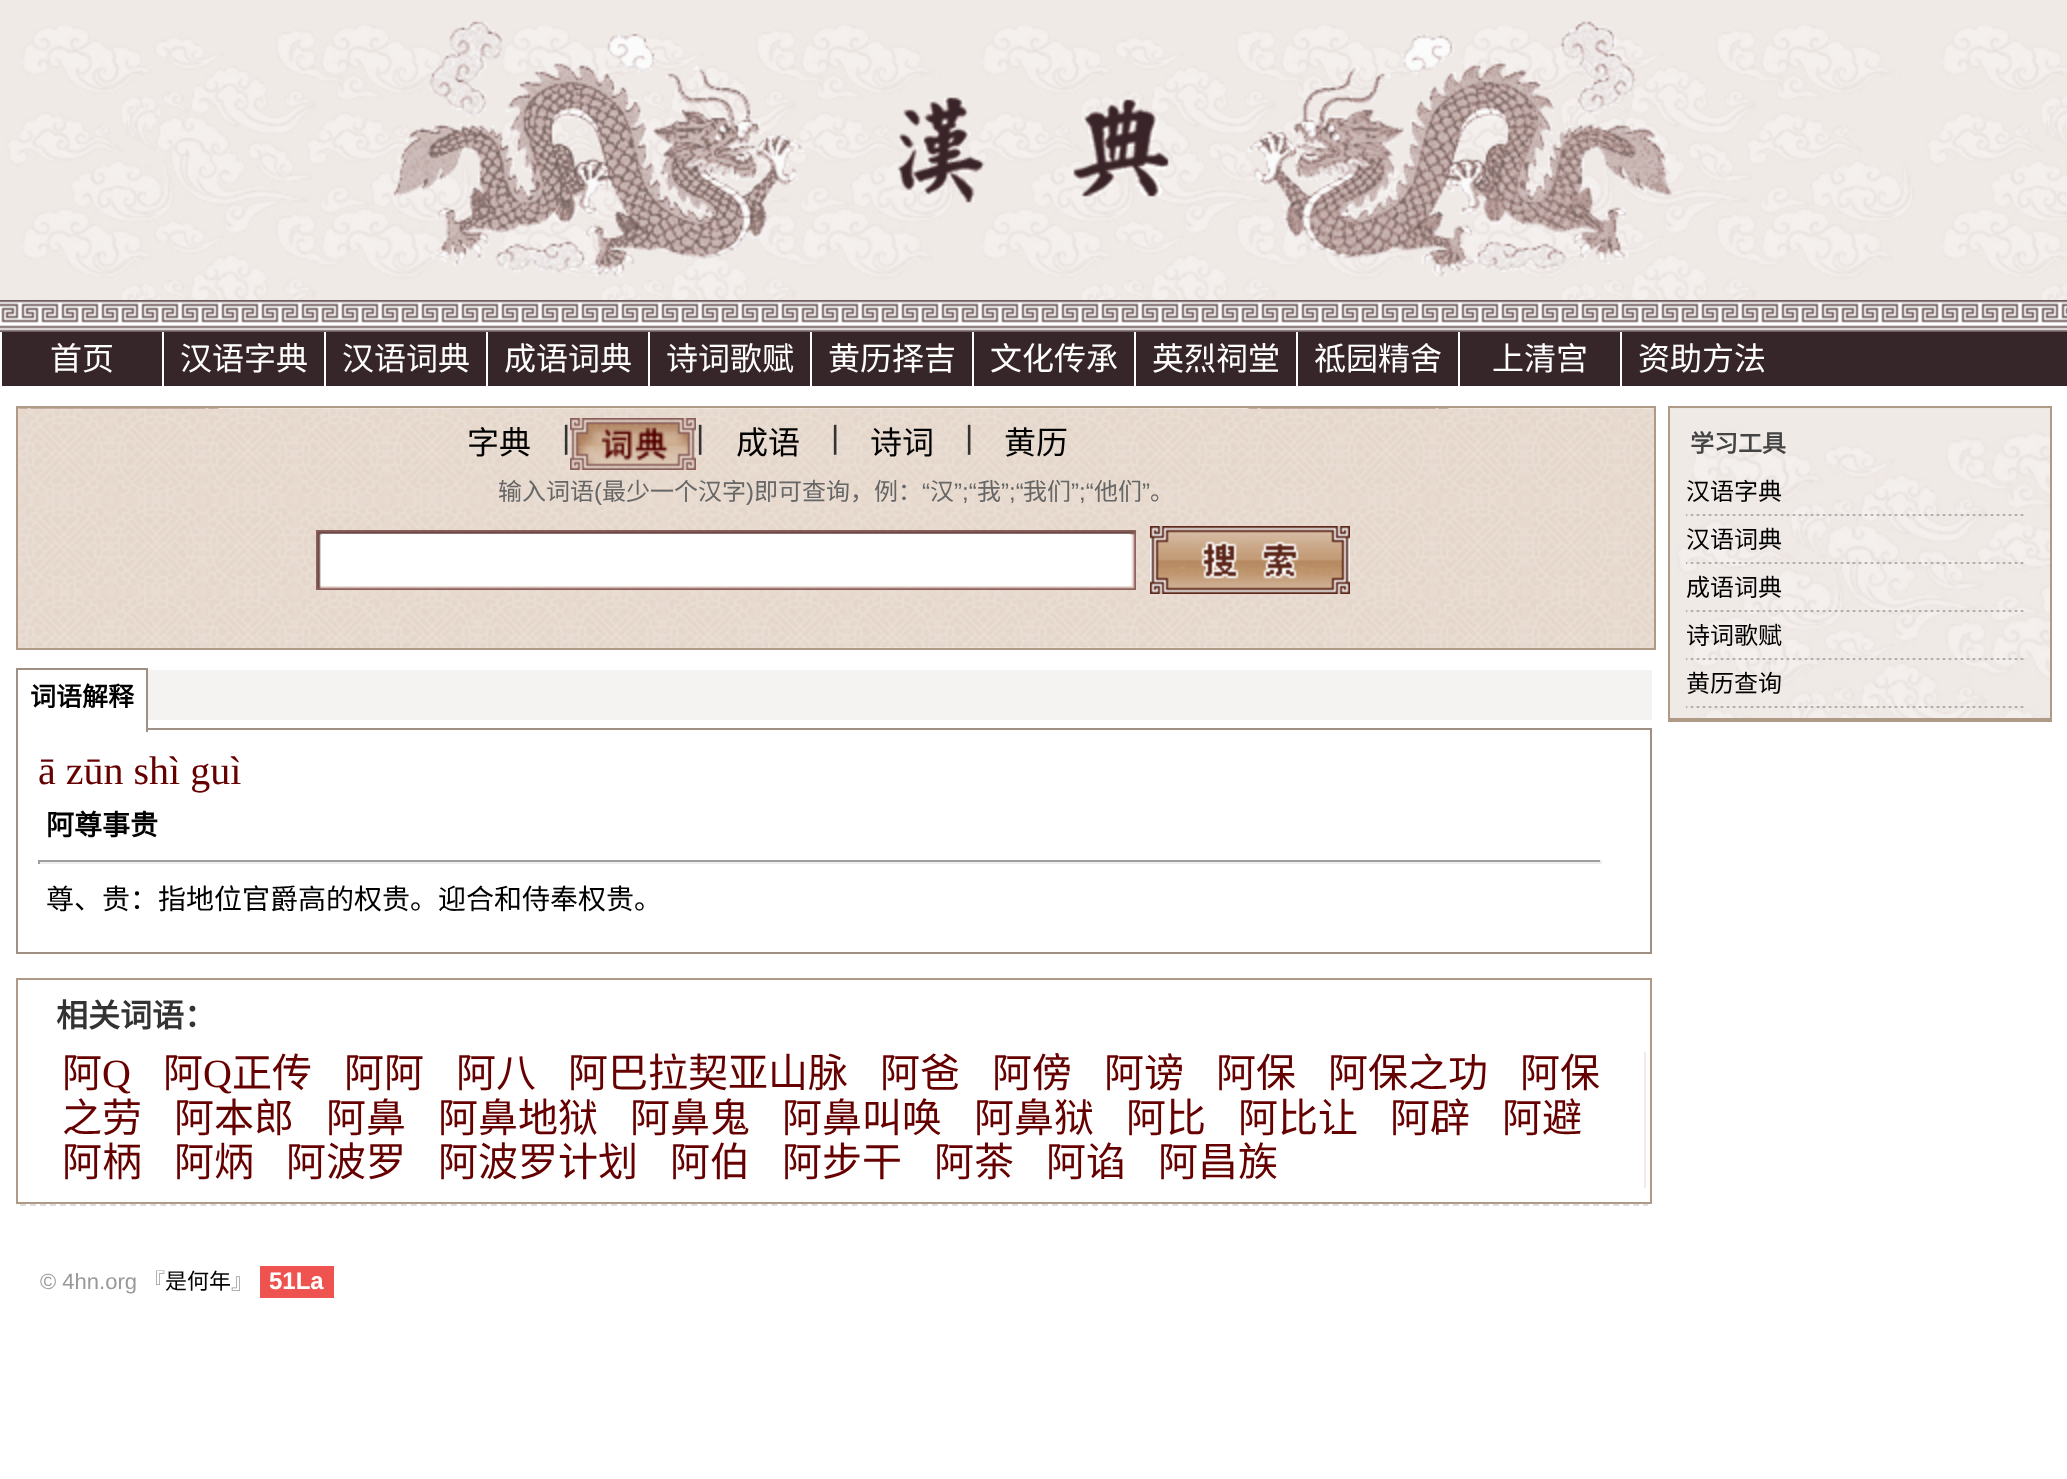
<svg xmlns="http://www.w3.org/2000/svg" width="2067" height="1479">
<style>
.a{font:32px Noto Sans CJK SC;fill:#fff}
.b{font:32px Noto Sans CJK SC;fill:#000}
.c{font:32px Liberation Sans;fill:#333}
.d{font:24px Noto Sans CJK SC;fill:#666}
.e{font:24px Liberation Sans;fill:#666}
.f{font:bold 26px Noto Sans CJK SC;fill:#000}
.g{font:40px Liberation Serif;fill:#600}
.h{font:bold 28px Noto Sans CJK SC;fill:#000}
.i{font:28px Noto Sans CJK SC;fill:#000}
.j{font:bold 32px Noto Sans CJK SC;fill:#333}
.k{font:40px Noto Sans CJK SC;fill:#600}
.l{font:bold 24px Noto Sans CJK SC;fill:#444}
.m{font:24px Noto Sans CJK SC;fill:#000}
.n{font:22px Liberation Sans;fill:#999}
.o{font:22px Noto Sans CJK SC;fill:#999}
.p{font:22px Noto Sans CJK SC;fill:#000}
.q{font:bold 24px Liberation Sans;fill:#fff}
</style>
<rect width="100%" height="100%" fill="#fff"/>
<image href="1.png" x="0" y="0" width="2067" height="300"/>
<image href="2.png" x="393" y="21" width="1280" height="256"/>
<image href="3.png" x="0" y="300" width="2067" height="32"/>
<path fill="#372629" d="M2 332h2065v54H2z"/>
<path fill="#fff" d="M162 332h2v54H162z"/>
<path fill="#fff" d="M324 332h2v54H324z"/>
<path fill="#fff" d="M486 332h2v54H486z"/>
<path fill="#fff" d="M648 332h2v54H648z"/>
<path fill="#fff" d="M810 332h2v54H810z"/>
<path fill="#fff" d="M972 332h2v54H972z"/>
<path fill="#fff" d="M1134 332h2v54H1134z"/>
<path fill="#fff" d="M1296 332h2v54H1296z"/>
<path fill="#fff" d="M1458 332h2v54H1458z"/>
<path fill="#fff" d="M1620 332h2v54H1620z"/>
<image href="4.png" x="18" y="408" width="1636" height="240"/>
<path fill="none" stroke="#af9a87" stroke-width="2" d="M17 407h1638v242H17z"/>
<image href="5.png" x="570" y="418" width="126" height="52"/>
<image href="6.png" x="316" y="530" width="820" height="60"/>
<path fill="#fff" d="M322 534h808v52H322z"/>
<path fill="#efefef" d="M1150 526h200v68H1150z"/>
<image href="7.png" x="1150" y="526" width="200" height="68"/>
<path fill="#f5f2f2" d="M148 670h1504v50H148z"/>
<path fill="none" stroke="#a08f83" stroke-width="2" d="M17 729h1634v224H17z"/>
<path fill="#fff" d="M18 728h128v2H18z"/>
<path fill="#a08f83" d="M16 668h132v2H16z"/>
<path fill="#a08f83" d="M146 668h2v64H146z"/>
<path fill="#a08f83" d="M16 668h2v64H16z"/>
<path fill="#9f9f9f" d="M38 860h1564v2H38z"/>
<path fill="#eee" d="M1600 860h2v4H1600z"/>
<path fill="#eee" d="M38 862h1564v2H38z"/>
<path fill="#9f9f9f" d="M38 860h2v4H38z"/>
<path fill="none" stroke="#af9a87" stroke-width="2" d="M17 979h1634v224H17z"/>
<path fill="#f1e9e7" d="M1644 1052h2v136H1644z"/>
<image href="8.png" x="1670" y="408" width="380" height="310"/>
<path fill="none" stroke="#af9a87" stroke-width="2" d="M1669 407h382v314H1669z"/>
<path fill="#af9a87" d="M1670 718h380v2H1670z"/>
<image href="9.png" x="1686" y="514" width="338" height="2"/>
<image href="10.png" x="1686" y="562" width="338" height="2"/>
<image href="11.png" x="1686" y="610" width="338" height="2"/>
<image href="12.png" x="1686" y="658" width="338" height="2"/>
<image href="13.png" x="1686" y="706" width="338" height="2"/>
<path fill="none" stroke="#ddd" stroke-width="2" stroke-dasharray="6 4.02" d="M20 1205h1628"/>
<path fill="#ef5350" d="M260 1266h74v32H260z"/>
<text class="a" x="50" y="370">首页</text>
<text class="a" x="180" y="370">汉语字典</text>
<text class="a" x="342" y="370">汉语词典</text>
<text class="a" x="504" y="370">成语词典</text>
<text class="a" x="666" y="370">诗词歌赋</text>
<text class="a" x="828" y="370">黄历择吉</text>
<text class="a" x="990" y="370">文化传承</text>
<text class="a" x="1152" y="370">英烈祠堂</text>
<text class="a" x="1314" y="370">祗园精舍</text>
<text class="a" x="1492" y="370">上清宫</text>
<text class="a" x="1638" y="370">资助方法</text>
<text class="b" x="467" y="454">字典</text>
<text class="c" x="562" y="448">|</text>
<text class="c" x="696" y="448">|</text>
<text class="b" x="736" y="454">成语</text>
<text class="c" x="831" y="448">|</text>
<text class="b" x="870" y="454">诗词</text>
<text class="c" x="965" y="448">|</text>
<text class="b" x="1004" y="454">黄历</text>
<text class="d" x="498" y="500">输入词语</text>
<text class="e" x="594" y="500">(</text>
<text class="d" x="602" y="500">最少一个汉字</text>
<text class="e" x="746" y="500">)</text>
<text class="d" x="754" y="500">即可查询，例：</text>
<text class="e" x="922" y="500">“</text>
<text class="d" x="930" y="500">汉</text>
<text class="e" x="954" y="500">”;“</text>
<text class="d" x="977" y="500">我</text>
<text class="e" x="1001" y="500">”;“</text>
<text class="d" x="1023" y="500">我们</text>
<text class="e" x="1071" y="500">”;“</text>
<text class="d" x="1094" y="500">他们</text>
<text class="e" x="1142" y="500">”</text>
<text class="d" x="1150" y="500">。</text>
<text class="f" x="30" y="706">词语解释</text>
<text class="g" x="38" y="784">ā zūn shì guì</text>
<text class="h" x="46" y="835">阿尊事贵</text>
<text class="i" x="46" y="909">尊、贵：指地位官爵高的权贵。迎合和侍奉权贵。</text>
<text class="j" x="56" y="1027">相关词语：</text>
<text class="k" x="62" y="1087">阿</text>
<text class="g" x="102" y="1087">Q</text>
<text class="k" x="163" y="1087">阿</text>
<text class="g" x="203" y="1087">Q</text>
<text class="k" x="232" y="1087">正传</text>
<text class="k" x="344" y="1087">阿阿</text>
<text class="k" x="456" y="1087">阿八</text>
<text class="k" x="568" y="1087">阿巴拉契亚山脉</text>
<text class="k" x="880" y="1087">阿爸</text>
<text class="k" x="992" y="1087">阿傍</text>
<text class="k" x="1104" y="1087">阿谤</text>
<text class="k" x="1216" y="1087">阿保</text>
<text class="k" x="1328" y="1087">阿保之功</text>
<text class="k" x="1520" y="1087">阿保</text>
<text class="k" x="62" y="1132">之劳</text>
<text class="k" x="174" y="1132">阿本郎</text>
<text class="k" x="326" y="1132">阿鼻</text>
<text class="k" x="438" y="1132">阿鼻地狱</text>
<text class="k" x="630" y="1132">阿鼻鬼</text>
<text class="k" x="782" y="1132">阿鼻叫唤</text>
<text class="k" x="974" y="1132">阿鼻狱</text>
<text class="k" x="1126" y="1132">阿比</text>
<text class="k" x="1238" y="1132">阿比让</text>
<text class="k" x="1390" y="1132">阿辟</text>
<text class="k" x="1502" y="1132">阿避</text>
<text class="k" x="62" y="1176">阿柄</text>
<text class="k" x="174" y="1176">阿炳</text>
<text class="k" x="286" y="1176">阿波罗</text>
<text class="k" x="438" y="1176">阿波罗计划</text>
<text class="k" x="670" y="1176">阿伯</text>
<text class="k" x="782" y="1176">阿步干</text>
<text class="k" x="934" y="1176">阿茶</text>
<text class="k" x="1046" y="1176">阿谄</text>
<text class="k" x="1158" y="1176">阿昌族</text>
<text class="l" x="1690" y="452">学习工具</text>
<text class="m" x="1686" y="500">汉语字典</text>
<text class="m" x="1686" y="548">汉语词典</text>
<text class="m" x="1686" y="596">成语词典</text>
<text class="m" x="1686" y="644">诗词歌赋</text>
<text class="m" x="1686" y="692">黄历查询</text>
<text class="n" x="40" y="1289">© 4hn.org</text>
<text class="o" x="143" y="1289">『</text>
<text class="p" x="165" y="1289">是何年</text>
<text class="o" x="231" y="1289">』</text>
<text class="q" x="269" y="1289">51La</text>
</svg>
